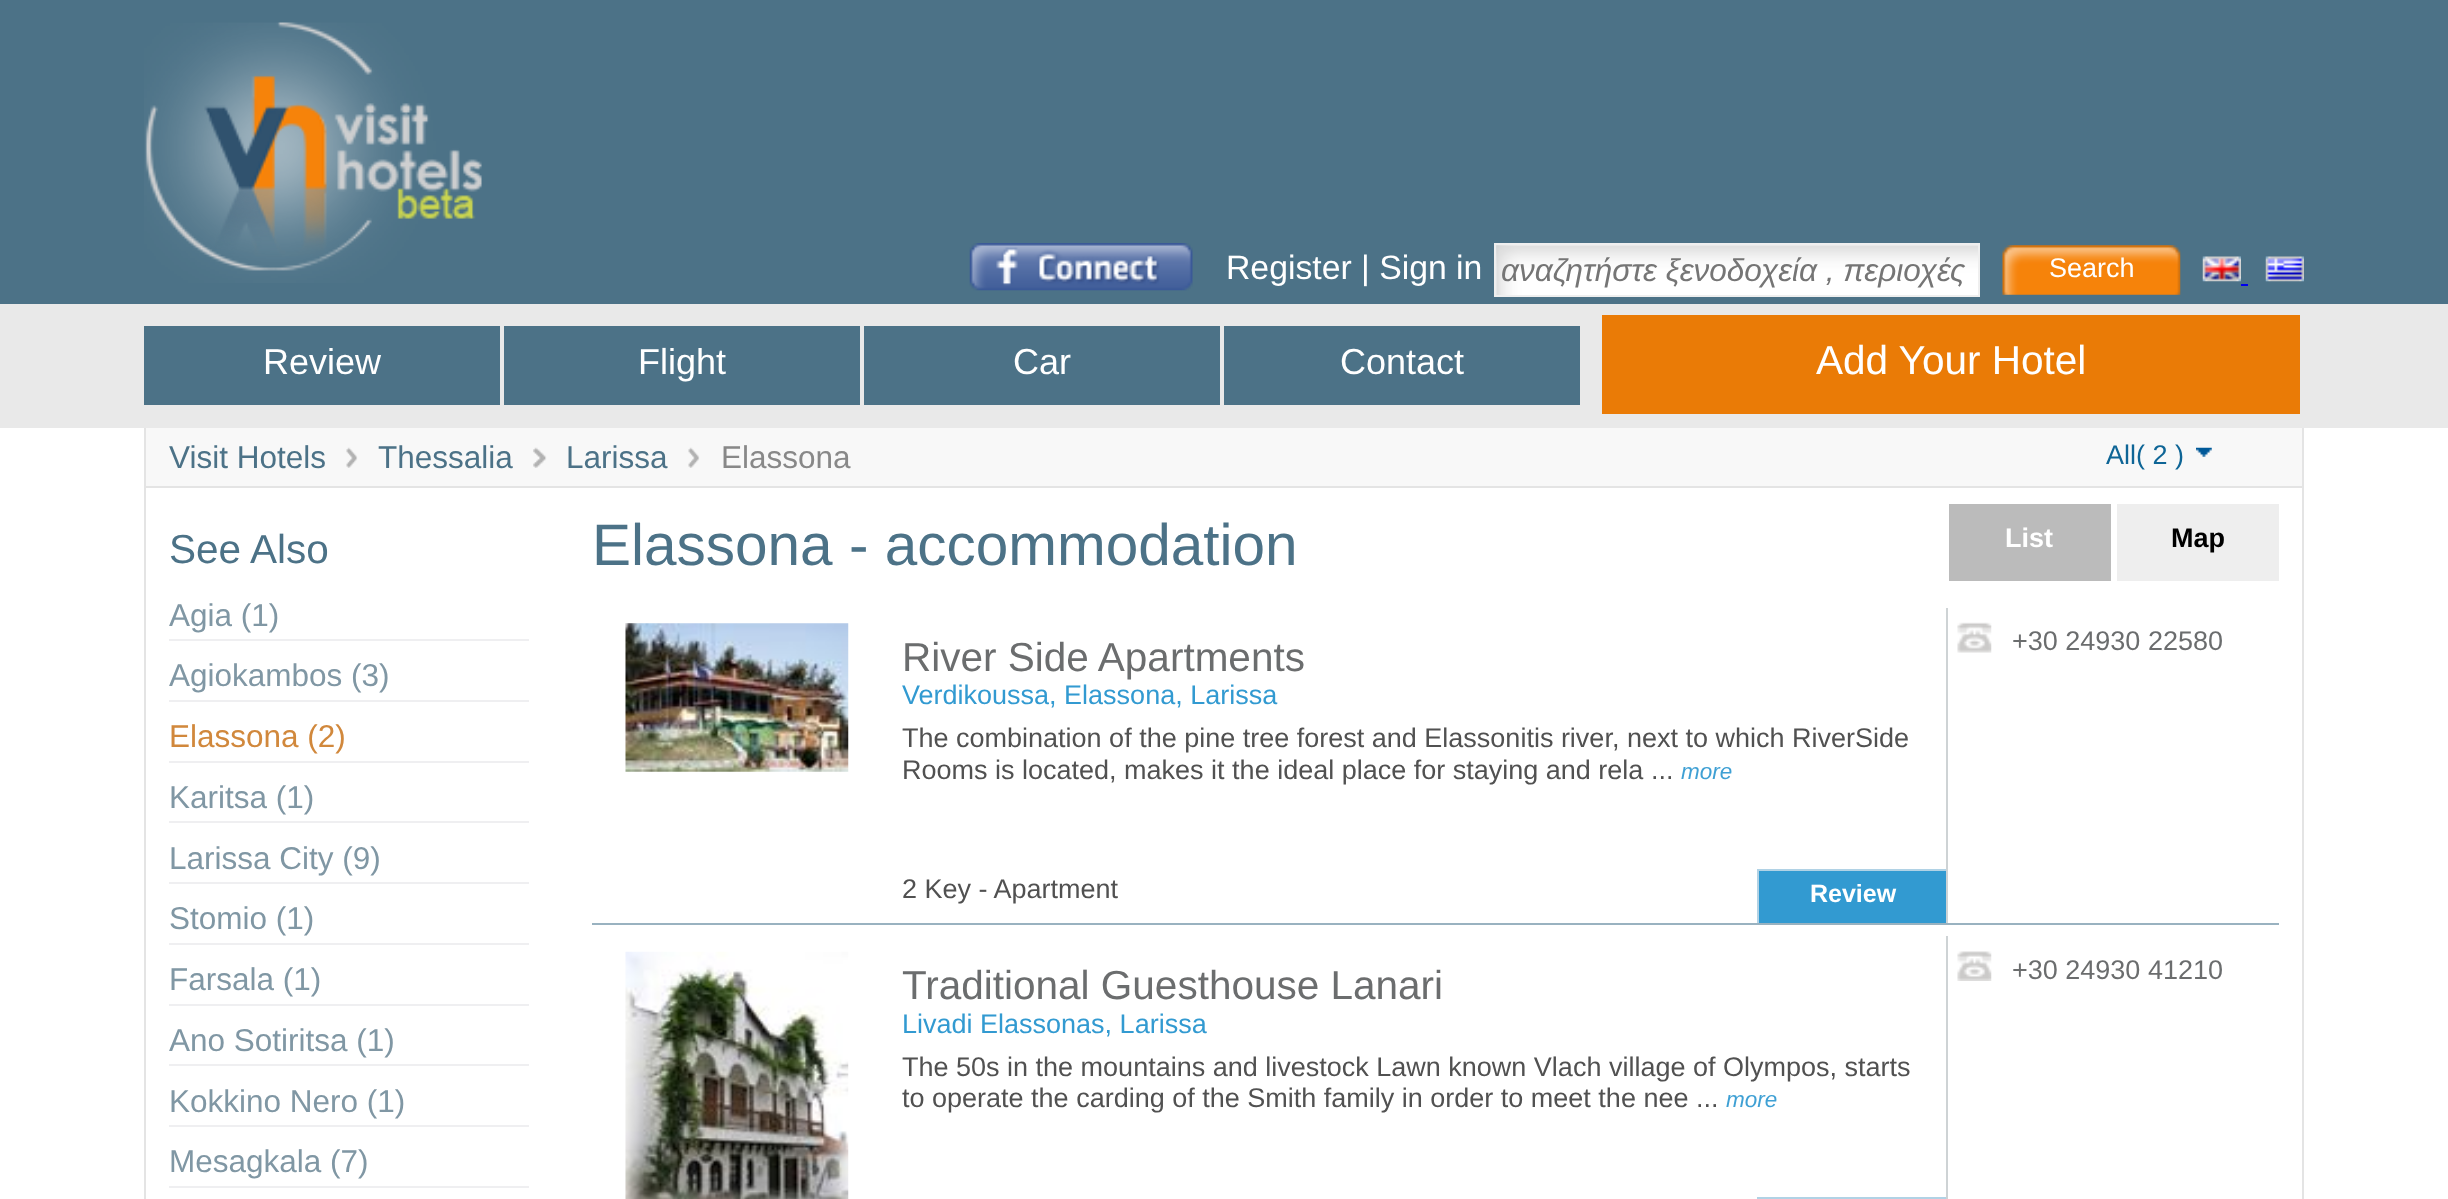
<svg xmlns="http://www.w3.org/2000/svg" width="2448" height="1199">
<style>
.a{font:33.75px Liberation Sans;fill:#fff}
.b{font:italic 31.5px Liberation Sans;fill:#757575}
.c{font:27px Liberation Sans;fill:#fff}
.d{font:36px Liberation Sans;fill:#fff}
.e{font:40.5px Liberation Sans;fill:#fff}
.f{font:31.5px Liberation Sans;fill:#4c7287}
.g{font:31.5px Liberation Sans;fill:#888}
.h{font:27px Liberation Sans;fill:#0e6596}
.i{font:40.5px Liberation Sans;fill:#4c7287}
.j{font:31.5px Liberation Sans;fill:#8097a4}
.k{font:31.5px Liberation Sans;fill:#d1883c}
.l{font:58.5px Liberation Sans;fill:#4c7287}
.m{font:bold 27px Liberation Sans;fill:#fff}
.n{font:bold 27px Liberation Sans;fill:#000}
.o{font:40.5px Liberation Sans;fill:#6b6d6e}
.p{font:27px Liberation Sans;fill:#329ad1}
.q{font:27px Liberation Sans;fill:#515151}
.r{font:italic 22.5px Liberation Sans;fill:#3fa0d4}
.s{font:bold 25px Liberation Sans;fill:#fff}
.t{font:27px Liberation Sans;fill:#6b6d6e}
</style>
<rect width="100%" height="100%" fill="#fff"/>
<path fill="#4c7287" d="M0 0h2448v304H0z"/>
<image href="1.png" x="144" y="22" width="338" height="261"/>
<image href="2.png" x="969" y="243" width="224" height="48"/>
<image href="3.png" x="1496" y="245" width="482" height="50"/>
<path fill="none" stroke="#efefef" stroke-width="2" d="M1495 244h484v52H1495z"/>
<image href="4.png" x="2002" y="245" width="179" height="50"/>
<image href="5.png" x="2202" y="256" width="39" height="26"/>
<image href="6.png" x="2265" y="256" width="39" height="26"/>
<path fill="#00e" d="M2241 284h7v2H2241z"/>
<path fill="#e9e9e9" d="M0 304h2448v124H0z"/>
<path fill="#4c7287" d="M144 326h356v79H144z"/>
<path fill="#4c7287" d="M504 326h356v79H504z"/>
<path fill="#4c7287" d="M864 326h356v79H864z"/>
<path fill="#4c7287" d="M1224 326h356v79H1224z"/>
<path fill="#ea7b06" d="M1602 315h698v99H1602z"/>
<path fill="#e4e4e4" d="M2302 428h2v771H2302z"/>
<path fill="#e4e4e4" d="M144 428h2v771H144z"/>
<path fill="#e4e4e4" d="M146 486h2156v2H146z"/>
<path fill="#f8f8f8" d="M146 428h2156v58H146z"/>
<image href="7.png" x="346" y="447" width="12" height="21"/>
<image href="8.png" x="533" y="447" width="14" height="21"/>
<image href="9.png" x="688" y="447" width="12" height="21"/>
<image href="10.png" x="2196" y="447" width="16" height="10"/>
<path fill="#efeff1" d="M169 639h360v2H169z"/>
<path fill="#efeff1" d="M169 700h360v2H169z"/>
<path fill="#efeff1" d="M169 761h360v2H169z"/>
<path fill="#efeff1" d="M169 821h360v2H169z"/>
<path fill="#efeff1" d="M169 882h360v2H169z"/>
<path fill="#efeff1" d="M169 943h360v2H169z"/>
<path fill="#efeff1" d="M169 1004h360v2H169z"/>
<path fill="#efeff1" d="M169 1064h360v2H169z"/>
<path fill="#efeff1" d="M169 1125h360v2H169z"/>
<path fill="#efeff1" d="M169 1186h360v2H169z"/>
<path fill="#bbb" d="M1949 504h162v77H1949z"/>
<path fill="#eee" d="M2117 504h162v77H2117z"/>
<path fill="#99b2c0" d="M592 923h1687v2H592z"/>
<image href="11.png" x="625" y="623" width="224" height="149"/>
<path fill="#329ad1" d="M1759 871h187v52H1759z"/>
<path fill="#b1d2e5" d="M1757 869h189v2H1757z"/>
<path fill="#b1d2e5" d="M1757 869h2v54H1757z"/>
<path fill="#ced3d5" d="M1946 608h2v315H1946z"/>
<image href="12.png" x="1957" y="622" width="35" height="31"/>
<image href="13.png" x="625" y="951" width="224" height="248"/>
<path fill="#b1d2e5" d="M1757 1197h189v2H1757z"/>
<path fill="#ced3d5" d="M1946 936h2v263H1946z"/>
<image href="14.png" x="1957" y="951" width="35" height="30"/>
<text class="a" x="1226" y="279">Register | Sign in</text>
<text class="b" x="1501" y="281">αναζητήστε ξενοδοχεία , περιοχές</text>
<text class="c" x="2049" y="277">Search</text>
<text class="d" x="263" y="374">Review</text>
<text class="d" x="638" y="374">Flight</text>
<text class="d" x="1013" y="374">Car</text>
<text class="d" x="1340" y="374">Contact</text>
<text class="e" x="1816" y="374">Add Your Hotel</text>
<text class="f" x="169" y="468">Visit Hotels</text>
<text class="f" x="378" y="468">Thessalia</text>
<text class="f" x="566" y="468">Larissa</text>
<text class="g" x="721" y="468">Elassona</text>
<text class="h" x="2106" y="464">All( 2 )</text>
<text class="i" x="169" y="563">See Also</text>
<text class="j" x="169" y="626">Agia (1)</text>
<text class="j" x="169" y="686">Agiokambos (3)</text>
<text class="k" x="169" y="747">Elassona (2)</text>
<text class="j" x="169" y="808">Karitsa (1)</text>
<text class="j" x="169" y="869">Larissa City (9)</text>
<text class="j" x="169" y="929">Stomio (1)</text>
<text class="j" x="169" y="990">Farsala (1)</text>
<text class="j" x="169" y="1051">Ano Sotiritsa (1)</text>
<text class="j" x="169" y="1112">Kokkino Nero (1)</text>
<text class="j" x="169" y="1172">Mesagkala (7)</text>
<text class="l" x="592" y="565">Elassona - accommodation</text>
<text class="m" x="2005" y="547">List</text>
<text class="n" x="2171" y="547">Map</text>
<text class="o" x="902" y="671">River Side Apartments</text>
<text class="p" x="902" y="704">Verdikoussa, Elassona, Larissa</text>
<text class="q" x="902" y="747">The combination of the pine tree forest and Elassonitis river, next to which RiverSide</text>
<text class="q" x="902" y="779">Rooms is located, makes it the ideal place for staying and rela ...</text>
<text class="r" x="1681" y="779">more</text>
<text class="q" x="902" y="898">2 Key - Apartment</text>
<text class="s" x="1810" y="902">Review</text>
<text class="t" x="2012" y="650">+30 24930 22580</text>
<text class="o" x="902" y="999">Traditional Guesthouse Lanari</text>
<text class="p" x="902" y="1033">Livadi Elassonas, Larissa</text>
<text class="q" x="902" y="1076">The 50s in the mountains and livestock Lawn known Vlach village of Olympos, starts</text>
<text class="q" x="902" y="1107">to operate the carding of the Smith family in order to meet the nee ...</text>
<text class="r" x="1726" y="1107">more</text>
<text class="t" x="2012" y="979">+30 24930 41210</text>
</svg>
